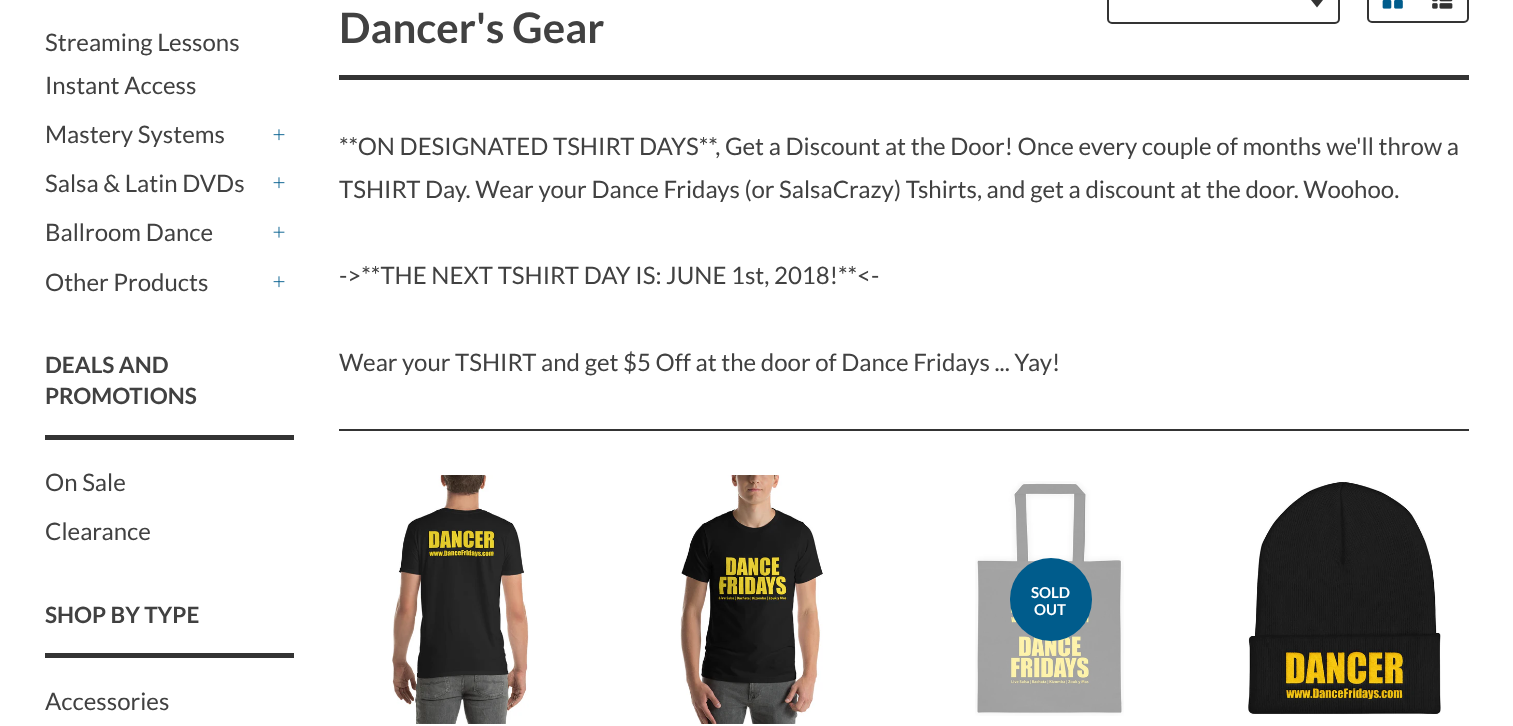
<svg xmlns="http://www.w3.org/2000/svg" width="1513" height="726">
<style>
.a{font:24px Lato;fill:#414141}
.b{font:bold 22.5px Lato;fill:#414141}
.c{font:bold 42px Lato;fill:#414141}
.d{font:bold 15px Lato;fill:#fff}
</style>
<rect width="100%" height="100%" fill="#fff"/>
<image href="1.png" x="273" y="129" width="12" height="12"/>
<image href="1.png" x="273" y="177" width="12" height="12"/>
<image href="2.png" x="273" y="226" width="12" height="12"/>
<image href="1.png" x="273" y="276" width="12" height="12"/>
<path fill="#343434" d="M45 435h249v5H45z"/>
<path fill="#343434" d="M45 653h249v5H45z"/>
<path fill="#343434" d="M339 75h1130v5H339z"/>
<image href="3.png" x="1311" y="0" width="12" height="8"/>
<rect fill="none" stroke="#343434" stroke-width="2" x="1108" y="-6" width="231" height="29" rx="4"/>
<rect fill="none" stroke="#343434" stroke-width="2" x="1368" y="-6" width="100" height="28" rx="4"/>
<image href="4.png" x="1382" y="0" width="21" height="9"/>
<image href="5.png" x="1432" y="0" width="21" height="9"/>
<path fill="#343434" d="M339 429h1130v2H339z"/>
<image href="6.png" x="392" y="475" width="137" height="249"/>
<image href="7.png" x="680" y="475" width="143" height="249"/>
<image href="8.png" x="975" y="481" width="149" height="235"/>
<rect fill="#005c8c" x="1010" y="558" width="82" height="83" rx="41"/>
<image href="9.png" x="1248" y="481" width="193" height="234"/>
<text class="a" x="45" y="51">Streaming Lessons</text>
<text class="a" x="45" y="94">Instant Access</text>
<text class="a" x="45" y="143">Mastery Systems</text>
<text class="a" x="45" y="192">Salsa &amp; Latin DVDs</text>
<text class="a" x="45" y="241">Ballroom Dance</text>
<text class="a" x="45" y="291">Other Products</text>
<text class="b" x="45" y="373">DEALS AND</text>
<text class="b" x="45" y="404">PROMOTIONS</text>
<text class="a" x="45" y="491">On Sale</text>
<text class="a" x="45" y="540">Clearance</text>
<text class="b" x="45" y="623">SHOP BY TYPE</text>
<text class="a" x="45" y="710">Accessories</text>
<text class="c" x="339" y="43">Dancer's Gear</text>
<text class="a" x="339" y="155">**ON DESIGNATED TSHIRT DAYS**, Get a Discount at the Door! Once every couple of months we'll throw a</text>
<text class="a" x="339" y="198">TSHIRT Day. Wear your Dance Fridays (or SalsaCrazy) Tshirts, and get a discount at the door. Woohoo.</text>
<text class="a" x="339" y="284">-&gt;**THE NEXT TSHIRT DAY IS: JUNE 1st, 2018!**&lt;-</text>
<text class="a" x="339" y="371">Wear your TSHIRT and get $5 Off at the door of Dance Fridays ... Yay!</text>
<text class="d" x="1031" y="598">SOLD</text>
<text class="d" x="1034" y="615">OUT</text>
</svg>
